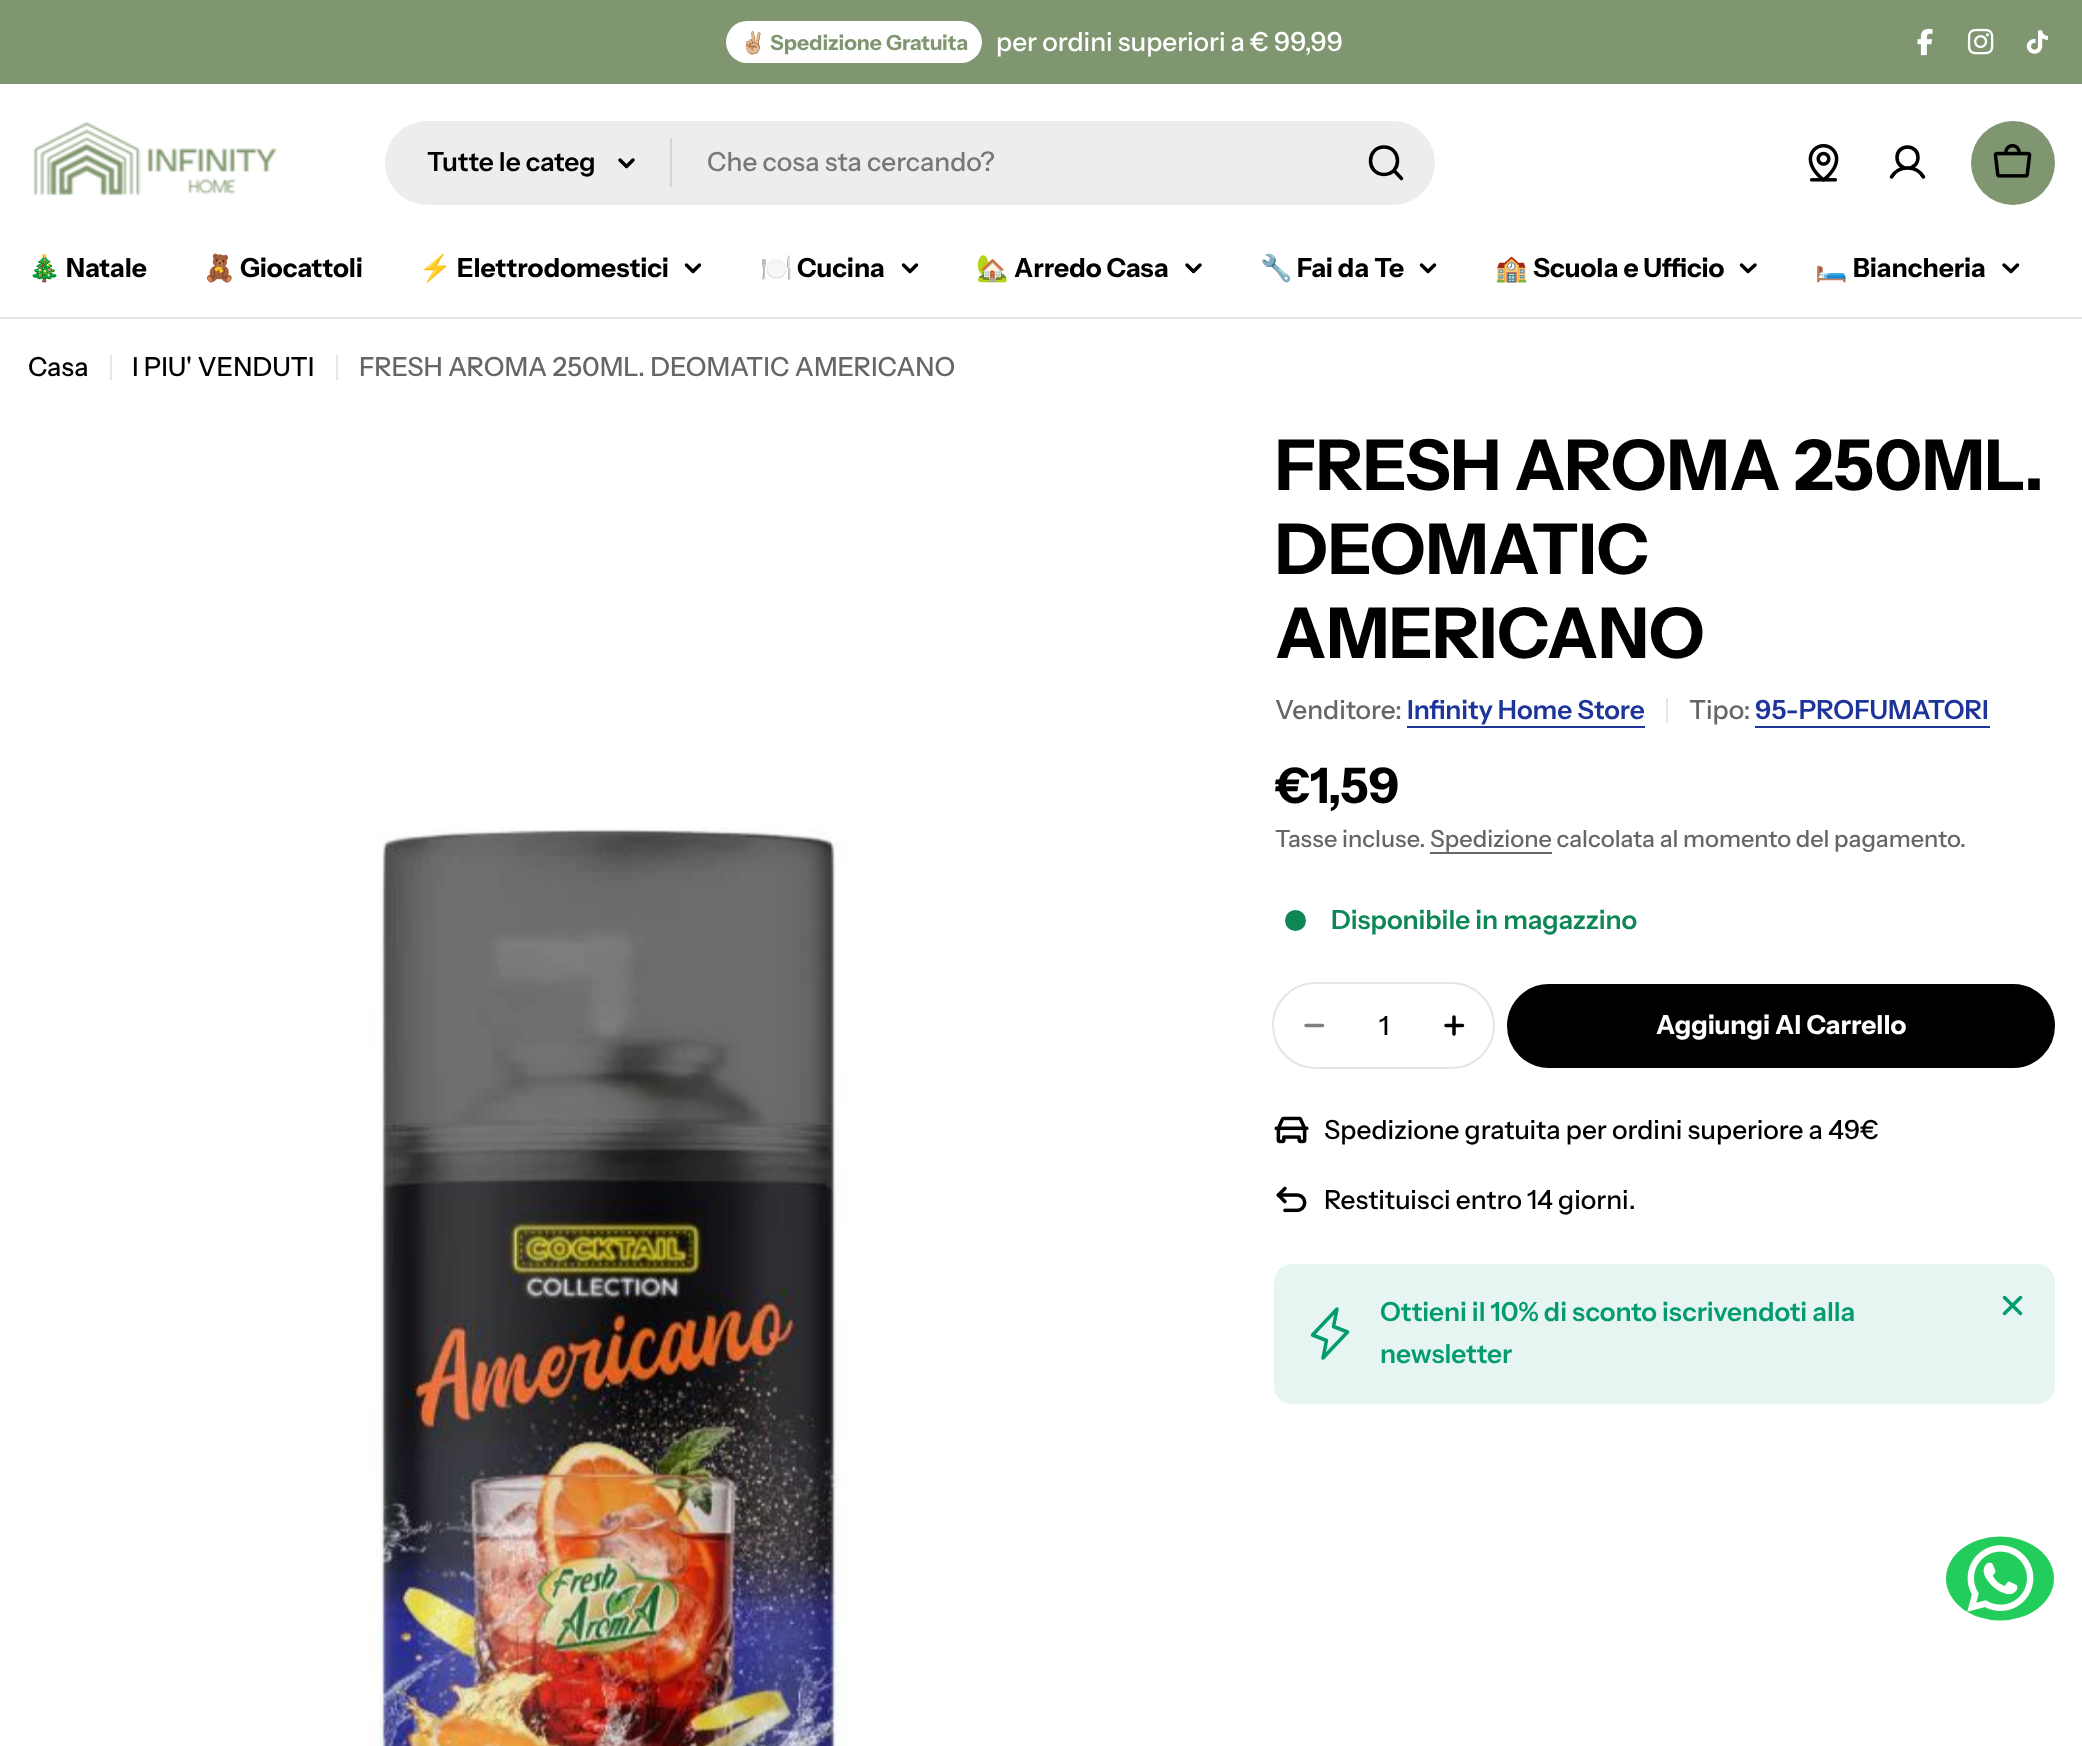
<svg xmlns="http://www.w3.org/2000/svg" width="2082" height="1746">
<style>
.a{font:bold 21px Noto Color Emoji;fill:#809671}
.b{font:bold 21px Instrument Sans;fill:#809671}
.c{font:500 26.25px Instrument Sans;fill:#fff}
.d{font:600 26.25px Instrument Sans;fill:#000}
.e{font:500 26.25px Instrument Sans;fill:#777}
.f{font:bold 26.25px Noto Color Emoji;fill:#000}
.g{font:bold 26.25px Instrument Sans;fill:#000}
.h{font:500 26.25px Instrument Sans;fill:#000}
.i{font:500 26.25px Instrument Sans;fill:#666}
.j{font:bold 70px Instrument Sans;fill:#000}
.k{font:600 26.25px Instrument Sans;fill:#1d349a}
.l{font:bold 49px Instrument Sans;fill:#000}
.m{font:500 23.6px Instrument Sans;fill:#666}
.n{font:600 26.25px Instrument Sans;fill:#0d8756}
.o{font:bold 26.25px Instrument Sans;fill:#fff}
.p{font:600 26.25px Instrument Sans;fill:#049b6e}
</style>
<rect width="100%" height="100%" fill="#fff"/>
<path fill="#809671" d="M0 0h2082v84H0z"/>
<rect fill="#fff" x="726" y="21" width="256" height="42" rx="21"/>
<image href="1.png" x="1917" y="28" width="16" height="28"/>
<image href="2.png" x="1967" y="28" width="27" height="27"/>
<image href="3.png" x="2026" y="30" width="22" height="24"/>
<image href="4.png" x="33" y="122" width="244" height="74"/>
<rect fill="#ededed" x="385" y="121" width="1050" height="84" rx="42"/>
<path fill="none" stroke="#000" stroke-width="3.5" stroke-linecap="round" stroke-linejoin="round" d="M633 160l-6.5 6.5l-6.5-6.5"/>
<path fill="#d5d5d5" d="M670 138h2v49H670z"/>
<path fill="none" stroke="#000" stroke-width="3.5" stroke-linecap="round" stroke-linejoin="round" d="M1384 174.5c18 0 18-27.5 0-27.5c-18 0-18 27.5 0 27.5zm10-4l7.5 8"/>
<image href="5.png" x="1808" y="143" width="31" height="39"/>
<path fill="none" stroke="#000" stroke-width="3.5" stroke-linecap="round" stroke-linejoin="round" d="M1907.5 168c14 0 14-21 0-21c-14 0-14 21 0 21zm-16 9c7-12 25-12 32 0"/>
<circle fill="#809671" cx="2013" cy="163" r="42"/>
<image href="6.png" x="1993" y="143" width="39" height="35"/>
<path fill="#e5e5e5" d="M0 317h2082v2H0z"/>
<path fill="none" stroke="#000" stroke-width="3.5" stroke-linecap="round" stroke-linejoin="round" d="M699.5 265l-6.5 6.5l-6.5-6.5"/>
<path fill="none" stroke="#000" stroke-width="3.5" stroke-linecap="round" stroke-linejoin="round" d="M916.5 265l-6.5 6.5l-6.5-6.5"/>
<path fill="none" stroke="#000" stroke-width="3.5" stroke-linecap="round" stroke-linejoin="round" d="M1200 265l-6.5 6.5l-6.5-6.5"/>
<path fill="none" stroke="#000" stroke-width="3.5" stroke-linecap="round" stroke-linejoin="round" d="M1434.5 265l-6.5 6.5l-6.5-6.5"/>
<path fill="none" stroke="#000" stroke-width="3.5" stroke-linecap="round" stroke-linejoin="round" d="M1755 265l-7 6.5l-6.5-6.5"/>
<path fill="none" stroke="#000" stroke-width="3.5" stroke-linecap="round" stroke-linejoin="round" d="M2017.5 265l-6.5 6.5l-7-6.5"/>
<path fill="#e6e6e6" d="M110 355h2v25H110z"/>
<path fill="#e6e6e6" d="M336 355h2v25H336z"/>
<image href="7.png" x="368" y="827" width="479" height="919"/>
<path fill="#1d349a" d="M1407 726h238v2H1407z"/>
<path fill="#e5e5e5" d="M1666 698h2v25H1666z"/>
<path fill="#1d349a" d="M1755 726h235v2H1755z"/>
<path fill="#666" d="M1430 852h122v2H1430z"/>
<circle fill="#0d8756" cx="1295.5" cy="920.5" r="10.5"/>
<rect fill="none" stroke="#e5e5e5" stroke-width="2" x="1273" y="983" width="221" height="85" rx="42.5"/>
<path fill="none" stroke="#808080" stroke-width="3.5" stroke-linecap="round" stroke-linejoin="round" d="M1306 1025.5h16.5"/>
<path fill="none" stroke="#000" stroke-width="3.5" stroke-linecap="round" stroke-linejoin="round" d="M1446 1025.5h16.5m-8.5-8.5v17"/>
<rect fill="#000" stroke="#000" stroke-width="2" x="1508" y="985" width="546" height="82" rx="41"/>
<image href="8.png" x="1274" y="1116" width="35" height="28"/>
<image href="9.png" x="1276" y="1186" width="31" height="27"/>
<rect fill="#e6f5f1" x="1274" y="1264" width="781" height="140" rx="18"/>
<path fill="none" stroke="#049b6e" stroke-width="3.5" stroke-linecap="round" stroke-linejoin="round" d="M1337 1309l-3.5 17.5l14 5.5l-24.5 26l3.5-17.5l-14-5.5z"/>
<path fill="none" stroke="#049b6e" stroke-width="3.5" stroke-linecap="round" stroke-linejoin="round" d="M2020.5 1297.5l-16 16m16 0l-16-16"/>
<ellipse fill="#22cd5b" cx="2000" cy="1578.5" rx="54" ry="42"/>
<image href="10.png" x="1967" y="1545" width="67" height="67"/>
<text class="a" x="740" y="50">✌🏼</text>
<text class="b" x="770" y="50">Spedizione Gratuita</text>
<text class="c" x="996" y="51">per ordini superiori a € 99,99</text>
<text class="d" x="427" y="171">Tutte le categ</text>
<text class="e" x="707" y="171">Che cosa sta cercando?</text>
<text class="f" x="28" y="277">🎄</text>
<text class="g" x="66" y="277">Natale</text>
<text class="f" x="203" y="277">🧸</text>
<text class="g" x="240" y="277">Giocattoli</text>
<text class="f" x="419" y="277">⚡</text>
<text class="g" x="457" y="277">Elettrodomestici</text>
<text class="f" x="760" y="277">🍽️</text>
<text class="g" x="797" y="277">Cucina</text>
<text class="f" x="976" y="277">🏡</text>
<text class="g" x="1014" y="277">Arredo Casa</text>
<text class="f" x="1260" y="277">🔧</text>
<text class="g" x="1297" y="277">Fai da Te</text>
<text class="f" x="1495" y="277">🏫</text>
<text class="g" x="1533" y="277">Scuola e Ufficio</text>
<text class="f" x="1815" y="277">🛏️</text>
<text class="g" x="1853" y="277">Biancheria</text>
<text class="h" x="28" y="376">Casa</text>
<text class="h" x="132" y="376">I PIU' VENDUTI</text>
<text class="i" x="359" y="376">FRESH AROMA 250ML. DEOMATIC AMERICANO</text>
<text class="j" x="1275" y="490">FRESH AROMA 250ML.</text>
<text class="j" x="1275" y="574">DEOMATIC</text>
<text class="j" x="1275" y="658">AMERICANO</text>
<text class="i" x="1275" y="719">Venditore:</text>
<text class="k" x="1407" y="719">Infinity Home Store</text>
<text class="i" x="1689" y="719">Tipo:</text>
<text class="k" x="1755" y="719">95-PROFUMATORI</text>
<text class="l" x="1275" y="803">€1,59</text>
<text class="m" x="1275" y="847">Tasse incluse. Spedizione calcolata al momento del pagamento.</text>
<text class="n" x="1331" y="929">Disponibile in magazzino</text>
<text class="h" x="1379" y="1035">1</text>
<text class="o" x="1656" y="1034">Aggiungi Al Carrello</text>
<text class="h" x="1324" y="1139">Spedizione gratuita per ordini superiore a 49€</text>
<text class="h" x="1324" y="1209">Restituisci entro 14 giorni.</text>
<text class="p" x="1380" y="1321">Ottieni il 10% di sconto iscrivendoti alla</text>
<text class="p" x="1380" y="1363">newsletter</text>
</svg>
